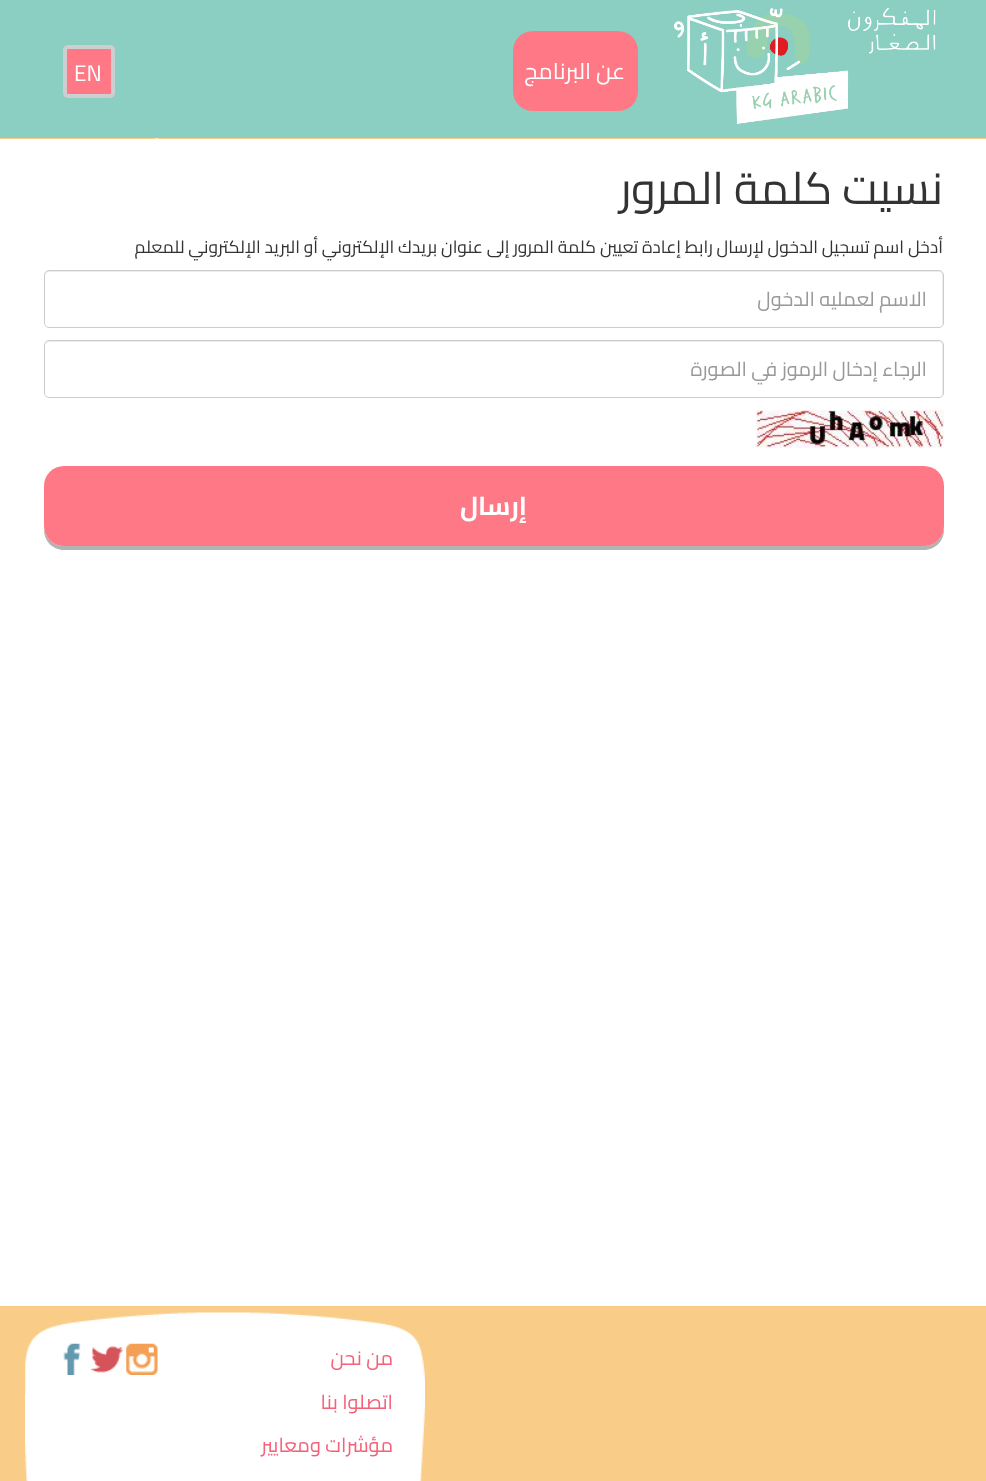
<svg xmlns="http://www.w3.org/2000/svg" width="986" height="1481">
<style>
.a{font:22.5px Cairo;direction:rtl;fill:#fff}
.b{font:22.5px Cairo;fill:#fff}
.c{font:45px Cairo;direction:rtl;fill:#333}
.d{font:17.5px Cairo;direction:rtl;fill:#333}
.e{font:20px Cairo;direction:rtl;fill:#999}
.f{font:bold 26px Cairo;direction:rtl;fill:#fff}
.g{font:20px Cairo;direction:rtl;fill:#f46178}
</style>
<rect width="100%" height="100%" fill="#f9cc87"/>
<image href="1.png" x="154" y="138" width="5" height="1"/>
<path fill="#8acfc2" d="M0 0h986v138H0z"/>
<image href="2.png" x="673" y="7" width="263" height="117"/>
<rect fill="#ff7885" x="513" y="31" width="125" height="80" rx="20"/>
<rect fill="#ff7885" stroke="#cccecf" stroke-width="4" x="65" y="47" width="48" height="49" rx="3"/>
<path fill="#fff" d="M0 139h986v1167H0z"/>
<path fill="#ececec" d="M49 272h890c2 0 3 2 3 4v49c1-1 1-2 1-3v-47c0-2-2-4-4-4h-890c-2 0-4 2-4 4v1c0-2 2-4 4-4z"/>
<rect fill="none" stroke="#ccc" x="44.5" y="270.5" width="899" height="57" rx="4.5"/>
<path fill="#ececec" d="M49 342h890c2 0 3 2 3 4v49c1-1 1-2 1-3v-47c0-2-2-4-4-4h-890c-2 0-4 2-4 4v1c0-2 2-4 4-4z"/>
<rect fill="none" stroke="#ccc" x="44.5" y="340.5" width="899" height="57" rx="4.5"/>
<image href="3.png" x="756" y="410" width="188" height="38"/>
<path fill="#b3b3b3" d="M44 529v1c0 11 9 20 20 20h860c11 0 20-9 20-20v-43v39c0 11-9 20-20 20h-860c-10 0-18-7-20-17z"/>
<rect fill="#ff7885" x="44" y="466" width="900" height="80" rx="20"/>
<image href="4.png" x="25" y="1312" width="400" height="169"/>
<image href="5.png" x="126" y="1343" width="32" height="32"/>
<image href="6.png" x="91" y="1346" width="32" height="27"/>
<image href="7.png" x="63" y="1343" width="18" height="32"/>
<text class="a" x="625" y="79">عن البرنامج</text>
<text class="b" x="74" y="81">EN</text>
<text class="c" x="943" y="204">نسيت كلمة المرور</text>
<text class="d" x="943" y="253">أدخل اسم تسجيل الدخول لإرسال رابط إعادة تعيين كلمة المرور إلى عنوان بريدك الإلكتروني أو البريد الإلكتروني للمعلم</text>
<text class="e" x="927" y="306">الاسم لعمليه الدخول</text>
<text class="e" x="927" y="376">الرجاء إدخال الرموز في الصورة</text>
<text class="f" x="527" y="515">إرسال</text>
<text class="g" x="393" y="1365">من نحن</text>
<text class="g" x="393" y="1409">اتصلوا بنا</text>
<text class="g" x="393" y="1452">مؤشرات ومعايير</text>
</svg>
